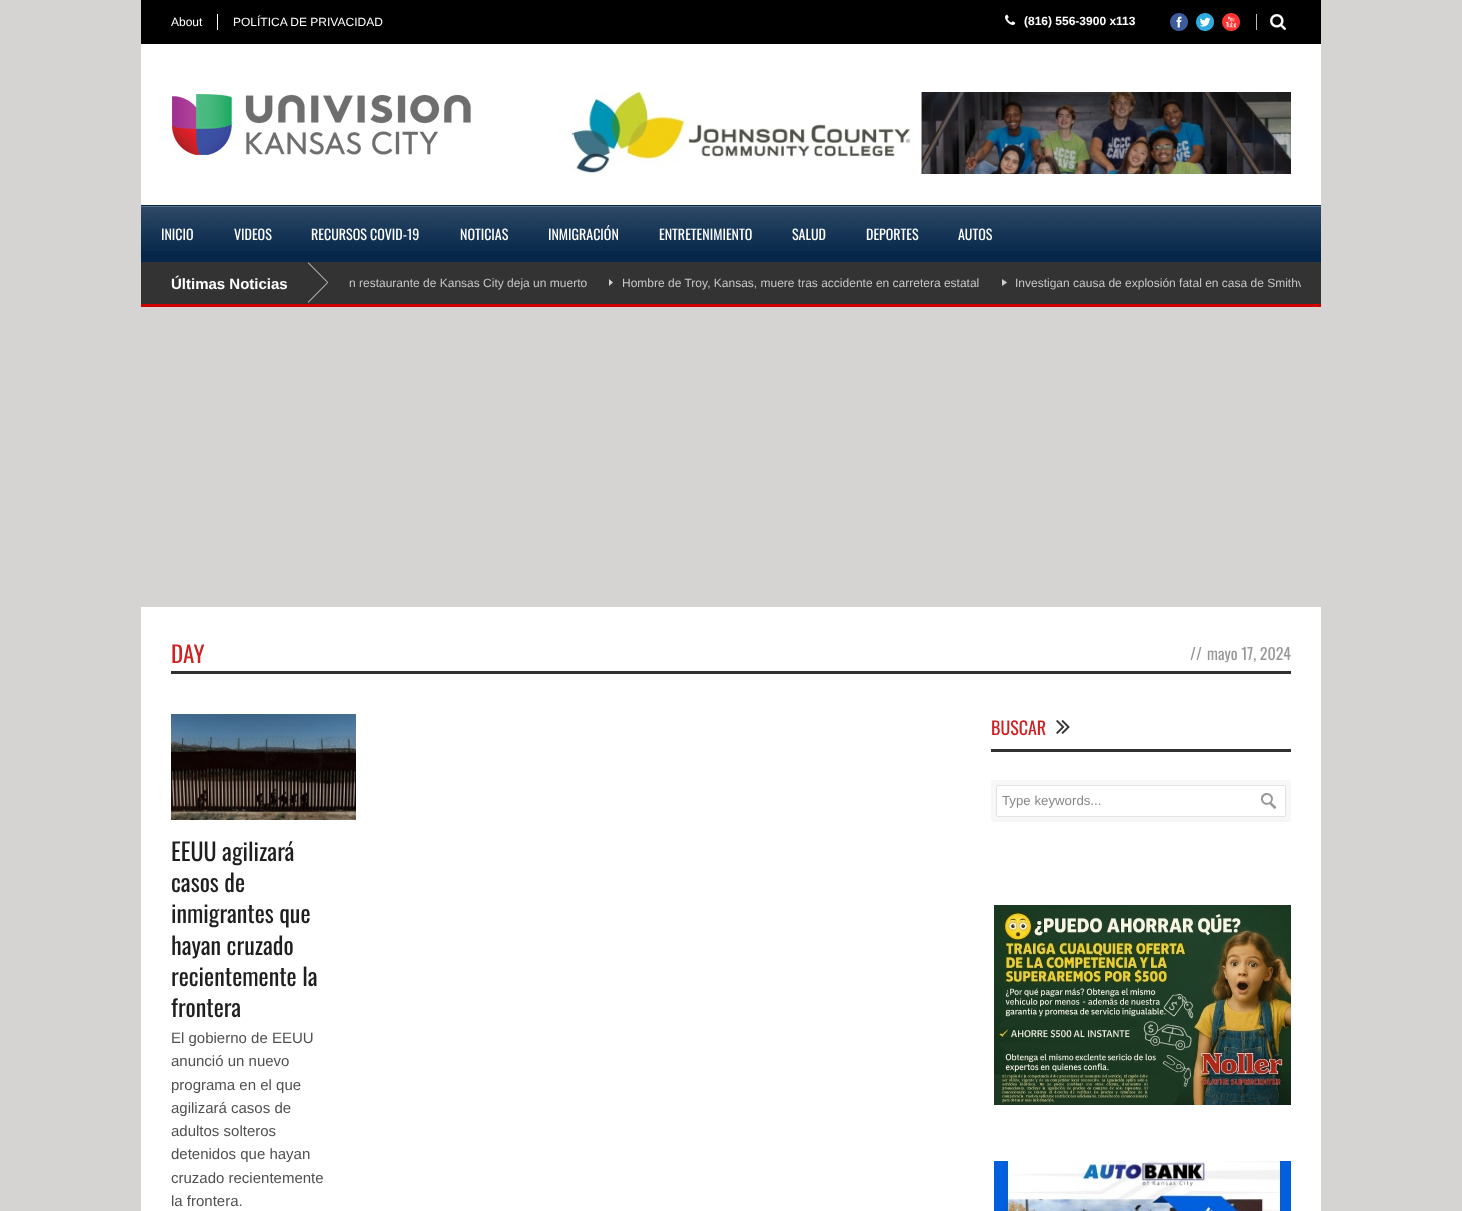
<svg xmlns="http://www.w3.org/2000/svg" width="1462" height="1211">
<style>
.a{font:12px Liberation Sans;fill:#fff}
.b{font:bold 12px Liberation Sans;fill:#fff}
.c{font:14px Oswald;fill:#fff}
.d{font:bold 15px Liberation Sans;fill:#fff}
.e{font:12px Liberation Sans;fill:#c7c7c7}
.f{font:23px Oswald;fill:#cf2121}
.g{font:16px Oswald;fill:#999}
.h{font:18px Oswald;fill:#cf2121}
.i{font:13.25px Liberation Sans;fill:#888}
.j{font:24px Oswald;fill:#1f1f1f}
.k{font:15px Liberation Sans;fill:#505050}
</style>
<defs>
<clipPath id="clip1"><path d="M348 262h953v42H348z"/></clipPath>
</defs>
<rect width="100%" height="100%" fill="#d6d3d3"/>
<path fill="#000" d="M141 0h1180v44H141z"/>
<path fill="#fff" d="M217 14h1v16H217z"/>
<image href="1.png" x="1005" y="14" width="11" height="11"/>
<image href="2.png" x="1170" y="13" width="18" height="18"/>
<image href="3.png" x="1196" y="13" width="18" height="18"/>
<image href="4.png" x="1222" y="13" width="18" height="18"/>
<image href="5.png" x="1270" y="14" width="16" height="16"/>
<path fill="#bababa" d="M1256 14h1v16H1256z"/>
<path fill="#fff" d="M141 44h1180v161H141z"/>
<image href="6.png" x="171" y="94" width="300" height="64"/>
<image href="7.png" x="569" y="92" width="722" height="82"/>
<path fill="#06274a" d="M141 205h1180v57H141z"/>
<image href="8.png" x="1013" y="206" width="308" height="45"/>
<image href="9.png" x="141" y="206" width="73" height="45"/>
<image href="10.png" x="214" y="206" width="77" height="45"/>
<image href="11.png" x="291" y="206" width="149" height="45"/>
<image href="12.png" x="440" y="206" width="88" height="45"/>
<image href="13.png" x="528" y="206" width="111" height="45"/>
<image href="14.png" x="639" y="206" width="133" height="45"/>
<image href="15.png" x="772" y="206" width="74" height="45"/>
<image href="16.png" x="846" y="206" width="92" height="45"/>
<image href="17.png" x="938" y="206" width="75" height="45"/>
<path fill="#333" d="M141 262h1180v42H141z"/>
<path fill="#d10000" d="M141 304h1180v3H141z"/>
<image href="18.png" x="308" y="262" width="20" height="41"/>
<image href="19.png" x="609" y="279" width="4" height="7"/>
<image href="20.png" x="1002" y="279" width="5" height="7"/>
<path fill="#fff" d="M141 607h1180v604H141z"/>
<path fill="#313131" d="M171 671h1120v3H171z"/>
<path fill="#313131" d="M991 749h300v3H991z"/>
<image href="21.png" x="1056" y="720" width="14" height="14"/>
<path fill="#f7f7f7" d="M993 790c-1 0-2 1-2 2v28c0 1 1 2 2 2h286c1 0 2-1 2-2v-3h-283c-1 0-2-1-2-2v-25z"/>
<path fill="#f7f7f7" d="M1003 780c-3 0-2 3-2 5h283c1 0 2 1 2 2v25h3c1 0 2-1 2-2v-28c0-1-1-2-2-2z"/>
<path fill="#f7f7f7" d="M996 815v5c0 1 1 2 2 2h286c1 0 2-1 2-2v-5c0 1-1 2-2 2h-286c-1 0-2-1-2-2z"/>
<path fill="#f7f7f7" d="M1284 817c7 0 7 1 7-6.5v-19c0-7.5 0-6.5-7-6.5c1 0 2 1 2 2v28c0 1-1 2-2 2z"/>
<path fill="#f7f7f7" d="M1001 817c0 2-1 5 2 5h287l1-2v-23c0-7 1-7-5-7v25c0 1-1 2-2 2z"/>
<path fill="#f7f7f7" d="M993 780c-1 0-2 1-2 2v28c0 1 1 2 2 2h3v-25c0-1 1-2 2-2h283c0-2 1-5-2-5z"/>
<rect fill="none" stroke="#e3e3e3" x="996.5" y="785.5" width="289" height="31" rx="1.5"/>
<image href="22.png" x="1261" y="793" width="16" height="16"/>
<image href="23.png" x="994" y="905" width="297" height="200"/>
<image href="24.png" x="994" y="1161" width="297" height="50"/>
<image href="25.png" x="171" y="714" width="185" height="106"/>
<text class="a" x="171" y="26">About</text>
<text class="a" x="233" y="26">POLÍTICA DE PRIVACIDAD</text>
<text class="b" x="1024" y="25">(816) 556-3900 x113</text>
<text class="c" x="161" y="240">INICIO</text>
<text class="c" x="234" y="240">VIDEOS</text>
<text class="c" x="311" y="240">RECURSOS COVID-19</text>
<text class="c" x="460" y="240">NOTICIAS</text>
<text class="c" x="548" y="240">INMIGRACIÓN</text>
<text class="c" x="659" y="240">ENTRETENIMIENTO</text>
<text class="c" x="792" y="240">SALUD</text>
<text class="c" x="866" y="240">DEPORTES</text>
<text class="c" x="958" y="240">AUTOS</text>
<text class="d" x="171" y="289">Últimas Noticias</text>
<text class="e" x="349" y="287">n restaurante de Kansas City deja un muerto</text>
<text class="e" x="622" y="287">Hombre de Troy, Kansas, muere tras accidente en carretera estatal</text>
<g clip-path="url(#clip1)">
<text class="e" x="1015" y="287">Investigan causa de explosión fatal en casa de Smithv</text>
</g>
<text class="f" x="171" y="663">DAY</text>
<text class="g" x="1190" y="660">//</text>
<text class="g" x="1207" y="660">mayo 17, 2024</text>
<text class="h" x="991" y="735">BUSCAR</text>
<text class="i" x="1002" y="805">Type keywords...</text>
<text class="j" x="171" y="861">EEUU agilizará</text>
<text class="j" x="171" y="892">casos de</text>
<text class="j" x="171" y="923">inmigrantes que</text>
<text class="j" x="171" y="955">hayan cruzado</text>
<text class="j" x="171" y="986">recientemente la</text>
<text class="j" x="171" y="1017">frontera</text>
<text class="k" x="171" y="1043">El gobierno de EEUU</text>
<text class="k" x="171" y="1066">anunció un nuevo</text>
<text class="k" x="171" y="1090">programa en el que</text>
<text class="k" x="171" y="1113">agilizará casos de</text>
<text class="k" x="171" y="1136">adultos solteros</text>
<text class="k" x="171" y="1159">detenidos que hayan</text>
<text class="k" x="171" y="1183">cruzado recientemente</text>
<text class="k" x="171" y="1206">la frontera.</text>
</svg>
